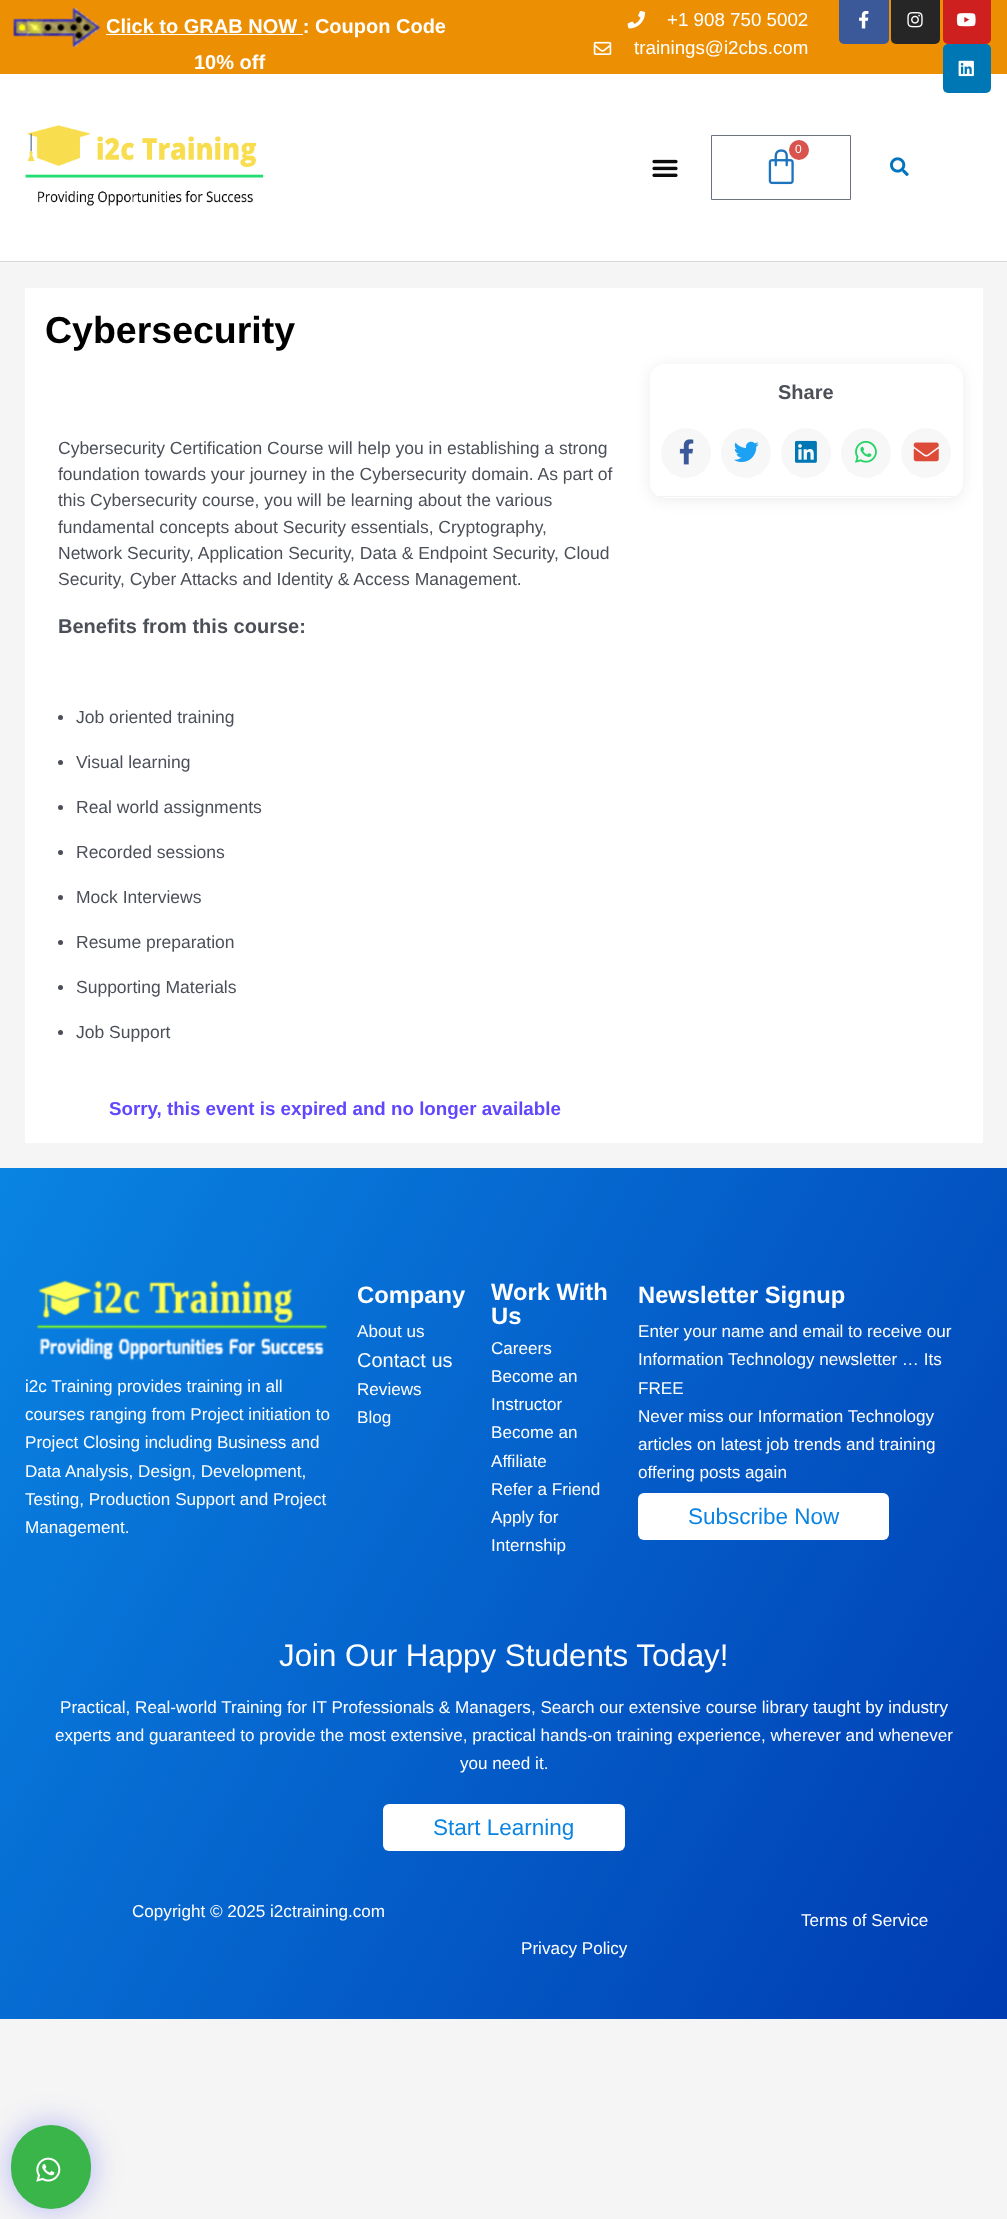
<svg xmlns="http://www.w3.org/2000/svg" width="1007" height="2219">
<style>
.a{font:bold 20px Liberation Sans;fill:#fff}
.b{font:18.75px Liberation Sans;fill:#fff}
.c{font:12px Liberation Sans;fill:#fff}
.d{font:bold 37.5px Liberation Sans;fill:#000}
.e{font:bold 20px Liberation Sans;fill:#4b4f58}
.f{font:17.5px Liberation Sans;fill:#4b4f58}
.g{font:bold 18.75px Liberation Sans;fill:#6046ff}
.h{font:bold 23.75px Liberation Sans;fill:#fff}
.i{font:17.1px Liberation Sans;fill:#fff}
.j{font:20px Liberation Sans;fill:#fff}
.k{font:22.5px Liberation Sans;fill:#0984e3}
.l{font:31.25px Liberation Sans;fill:#fff}
</style>
<defs>
<clipPath id="clip1"><rect x="650" y="364" width="313" height="134" rx="15"/></clipPath>
<linearGradient id="g1" gradientUnits="userSpaceOnUse" x1="-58" y1="1269" x2="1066" y2="1918"><stop offset="0" stop-color="#0984e3"/><stop offset="1" stop-color="#003bb1"/></linearGradient>
</defs>
<rect width="100%" height="100%" fill="#f5f5f5"/>
<path fill="#ed8f03" d="M0 0h1007v74H0z"/>
<image href="1.png" x="13" y="7" width="88" height="42"/>
<path fill="#fff" d="M106 34h197v1H106z"/>
<image href="2.png" x="627" y="11" width="18" height="18"/>
<image href="3.png" x="593" y="41" width="19" height="14"/>
<rect fill="#3b5998" x="839" y="-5" width="50" height="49" rx="5"/>
<image href="4.png" x="859" y="10" width="10" height="19"/>
<rect fill="#262626" x="891" y="-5" width="49" height="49" rx="5"/>
<image href="5.png" x="907" y="12" width="16" height="16"/>
<rect fill="#cd201f" x="943" y="-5" width="48" height="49" rx="5"/>
<image href="6.png" x="956" y="13" width="20" height="14"/>
<path fill="#fff" d="M0 74h1007v187H0z"/>
<rect fill="#0077b5" x="943" y="44" width="48" height="49" rx="5"/>
<image href="7.png" x="958" y="60" width="16" height="17"/>
<path fill="#d8d8d8" d="M0 261h1007v1H0z"/>
<image href="8.png" x="25" y="125" width="239" height="81"/>
<path fill="none" stroke="#69727d" d="M711.5 135.5h139v64H711.5z"/>
<image href="9.png" x="768" y="149" width="26" height="36"/>
<circle fill="#d9534f" cx="799" cy="150" r="10"/>
<image href="10.png" x="652" y="159" width="26" height="18"/>
<image href="11.png" x="890" y="157" width="19" height="19"/>
<path fill="#fff" d="M25 288h958v855H25z"/>
<rect fill="#00000014" filter="blur(7.5px)" x="650" y="366" width="313" height="134" rx="15"/>
<rect fill="#fff" x="650" y="364" width="313" height="134" rx="15"/>
<g clip-path="url(#clip1)">
<path fill="#f0f2f5" d="M650 496h313v1H650z"/>
</g>
<circle fill="#f7f7f7" cx="686" cy="453" r="25"/>
<image href="12.png" x="679" y="439" width="15" height="26"/>
<circle fill="#f7f7f7" cx="746" cy="453" r="25"/>
<image href="13.png" x="734" y="441" width="25" height="21"/>
<circle fill="#f7f7f7" cx="806" cy="453" r="25"/>
<image href="14.png" x="795" y="440" width="22" height="23"/>
<circle fill="#f7f7f7" cx="866" cy="453" r="25"/>
<image href="15.png" x="855" y="440" width="22" height="23"/>
<circle fill="#f7f7f7" cx="926" cy="453" r="25"/>
<image href="16.png" x="913" y="442" width="26" height="20"/>
<circle fill="#4b4f58" cx="60.5" cy="717.5" r="2.5"/>
<circle fill="#4b4f58" cx="60.5" cy="762.5" r="2.5"/>
<circle fill="#4b4f58" cx="60.5" cy="807.5" r="2.5"/>
<circle fill="#4b4f58" cx="60.5" cy="852.5" r="2.5"/>
<circle fill="#4b4f58" cx="60.5" cy="897.5" r="2.5"/>
<circle fill="#4b4f58" cx="60.5" cy="942.5" r="2.5"/>
<circle fill="#4b4f58" cx="60.5" cy="987.5" r="2.5"/>
<circle fill="#4b4f58" cx="60.5" cy="1032.5" r="2.5"/>
<path fill="url(#g1)" d="M0 1168h1007v851H0z"/>
<rect fill="#fff" x="638" y="1493" width="251" height="47" rx="6"/>
<image href="17.png" x="36" y="1280" width="292" height="81"/>
<rect fill="#fff" x="383" y="1804" width="242" height="47" rx="6"/>
<rect fill="#3538f059" filter="blur(15.5px)" x="11" y="2125" width="80" height="84" rx="40"/>
<rect fill="#39b54a" x="11" y="2125" width="80" height="84" rx="40"/>
<image href="18.png" x="36" y="2157" width="25" height="25"/>
<text class="a" x="106" y="33">Click to GRAB NOW : Coupon Code</text>
<text class="a" x="194" y="69">10% off</text>
<text class="b" x="667" y="26">+1 908 750 5002</text>
<text class="b" x="634" y="54">trainings@i2cbs.com</text>
<text class="c" x="795" y="153">0</text>
<text class="d" x="45" y="343">Cybersecurity</text>
<text class="e" x="778" y="399">Share</text>
<text class="f" x="58" y="454">Cybersecurity Certification Course will help you in establishing a strong</text>
<text class="f" x="58" y="480">foundation towards your journey in the Cybersecurity domain. As part of</text>
<text class="f" x="58" y="506">this Cybersecurity course, you will be learning about the various</text>
<text class="f" x="58" y="533">fundamental concepts about Security essentials, Cryptography,</text>
<text class="f" x="58" y="559">Network Security, Application Security, Data &amp; Endpoint Security, Cloud</text>
<text class="f" x="58" y="585">Security, Cyber Attacks and Identity &amp; Access Management.</text>
<text class="e" x="58" y="633">Benefits from this course:</text>
<text class="f" x="76" y="723">Job oriented training</text>
<text class="f" x="76" y="768">Visual learning</text>
<text class="f" x="76" y="813">Real world assignments</text>
<text class="f" x="76" y="858">Recorded sessions</text>
<text class="f" x="76" y="903">Mock Interviews</text>
<text class="f" x="76" y="948">Resume preparation</text>
<text class="f" x="76" y="993">Supporting Materials</text>
<text class="f" x="76" y="1038">Job Support</text>
<text class="g" x="109" y="1115">Sorry, this event is expired and no longer available</text>
<text class="h" x="357" y="1303">Company</text>
<text class="i" x="357" y="1337">About us</text>
<text class="j" x="357" y="1367">Contact us</text>
<text class="i" x="357" y="1395">Reviews</text>
<text class="i" x="357" y="1423">Blog</text>
<text class="h" x="491" y="1300">Work With</text>
<text class="h" x="491" y="1324">Us</text>
<text class="i" x="491" y="1354">Careers</text>
<text class="i" x="491" y="1382">Become an</text>
<text class="i" x="491" y="1410">Instructor</text>
<text class="i" x="491" y="1438">Become an</text>
<text class="i" x="491" y="1467">Affiliate</text>
<text class="i" x="491" y="1495">Refer a Friend</text>
<text class="i" x="491" y="1523">Apply for</text>
<text class="i" x="491" y="1551">Internship</text>
<text class="h" x="638" y="1303">Newsletter Signup</text>
<text class="i" x="638" y="1337">Enter your name and email to receive our</text>
<text class="i" x="638" y="1365">Information Technology newsletter … Its</text>
<text class="i" x="638" y="1394">FREE</text>
<text class="i" x="638" y="1422">Never miss our Information Technology</text>
<text class="i" x="638" y="1450">articles on latest job trends and training</text>
<text class="i" x="638" y="1478">offering posts again</text>
<text class="k" x="688" y="1524">Subscribe Now</text>
<text class="i" x="25" y="1392">i2c Training provides training in all</text>
<text class="i" x="25" y="1420">courses ranging from Project initiation to</text>
<text class="i" x="25" y="1448">Project Closing including Business and</text>
<text class="i" x="25" y="1477">Data Analysis, Design, Development,</text>
<text class="i" x="25" y="1505">Testing, Production Support and Project</text>
<text class="i" x="25" y="1533">Management.</text>
<text class="l" x="279" y="1666">Join Our Happy Students Today!</text>
<text class="i" x="60" y="1713">Practical, Real-world Training for IT Professionals &amp; Managers, Search our extensive course library taught by industry</text>
<text class="i" x="55" y="1741">experts and guaranteed to provide the most extensive, practical hands-on training experience, wherever and whenever</text>
<text class="i" x="460" y="1769">you need it.</text>
<text class="k" x="433" y="1835">Start Learning</text>
<text class="i" x="132" y="1917">Copyright © 2025 i2ctraining.com</text>
<text class="i" x="801" y="1926">Terms of Service</text>
<text class="i" x="521" y="1954">Privacy Policy</text>
</svg>
